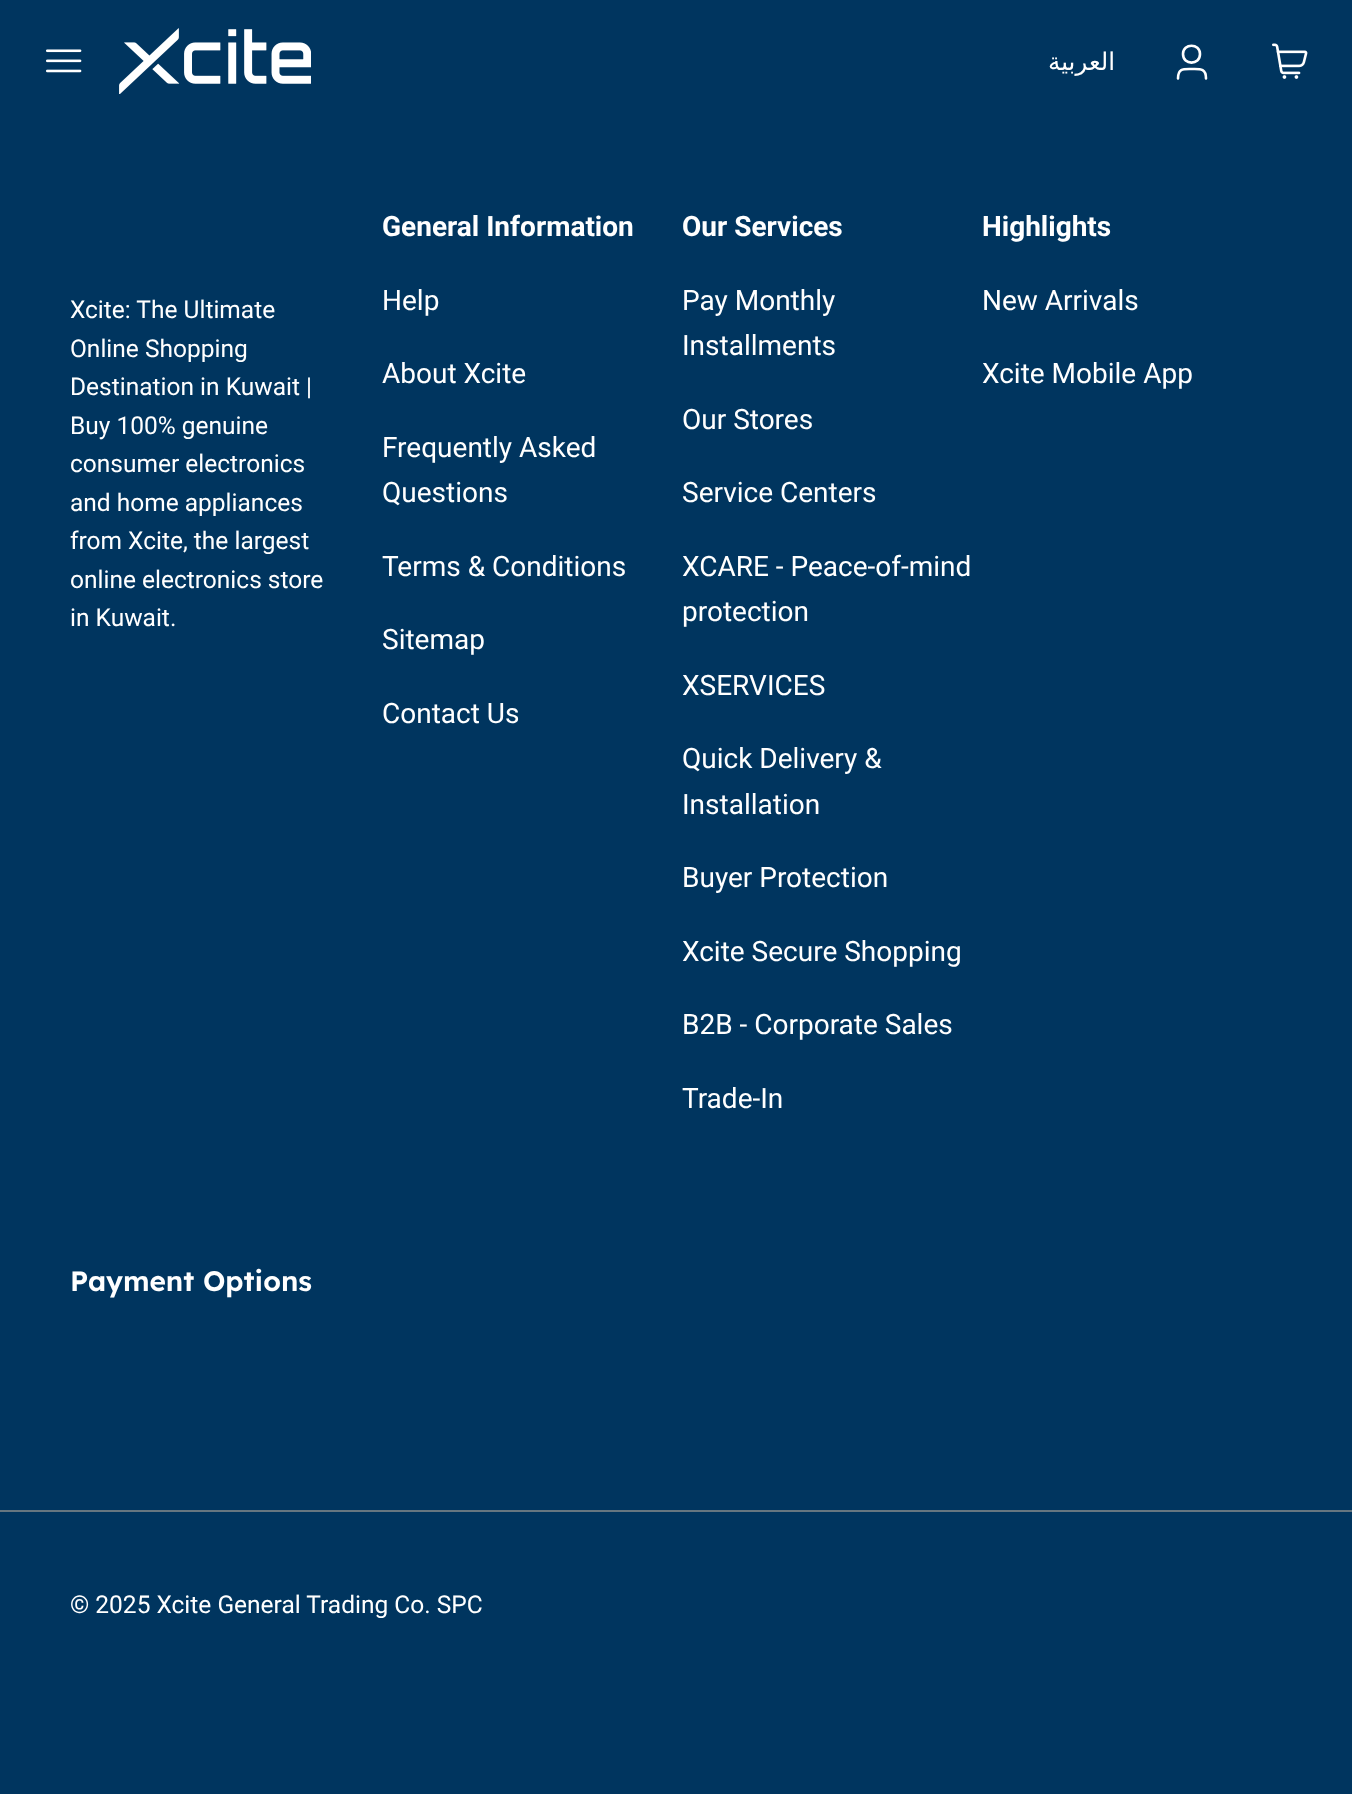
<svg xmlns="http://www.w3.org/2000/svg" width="1352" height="1794">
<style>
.a{font:24.5px DejaVu Sans;direction:rtl;fill:#fff}
.b{font:24.5px Roboto;fill:#fff}
.c{font:bold 28px Roboto;fill:#fff}
.d{font:28px Roboto;fill:#fff}
.e{font:600 28px Lexend;fill:#fff}
</style>
<rect width="100%" height="100%" fill="#00355f"/>
<image href="1.png" x="46" y="49" width="36" height="24"/>
<image href="2.png" x="119" y="28" width="192" height="66"/>
<path fill="none" stroke="#fff" stroke-width="2.6" stroke-linecap="round" stroke-linejoin="round" d="M1183 54c0 11.5 17 11.5 17 0c0-11-17-11-17 0zm23 24.5c0-10.5-6-9.5-14-9.5c-8.5 0-14-1-14 9.5"/>
<image href="3.png" x="1272" y="43" width="36" height="36"/>
<path fill="#667680" d="M0 1510h1352v2H0z"/>
<text class="a" x="1115" y="70">العربية</text>
<text class="b" x="70" y="318">Xcite: The Ultimate</text>
<text class="b" x="70" y="357">Online Shopping</text>
<text class="b" x="70" y="395">Destination in Kuwait |</text>
<text class="b" x="70" y="434">Buy 100% genuine</text>
<text class="b" x="70" y="472">consumer electronics</text>
<text class="b" x="70" y="511">and home appliances</text>
<text class="b" x="70" y="549">from Xcite, the largest</text>
<text class="b" x="70" y="588">online electronics store</text>
<text class="b" x="70" y="626">in Kuwait.</text>
<text class="c" x="382" y="236">General Information</text>
<text class="d" x="382" y="310">Help</text>
<text class="d" x="382" y="383">About Xcite</text>
<text class="d" x="382" y="457">Frequently Asked</text>
<text class="d" x="382" y="502">Questions</text>
<text class="d" x="382" y="576">Terms &amp; Conditions</text>
<text class="d" x="382" y="649">Sitemap</text>
<text class="d" x="382" y="723">Contact Us</text>
<text class="c" x="682" y="236">Our Services</text>
<text class="d" x="682" y="310">Pay Monthly</text>
<text class="d" x="682" y="355">Installments</text>
<text class="d" x="682" y="429">Our Stores</text>
<text class="d" x="682" y="502">Service Centers</text>
<text class="d" x="682" y="576">XCARE - Peace-of-mind</text>
<text class="d" x="682" y="621">protection</text>
<text class="d" x="682" y="695">XSERVICES</text>
<text class="d" x="682" y="768">Quick Delivery &amp;</text>
<text class="d" x="682" y="814">Installation</text>
<text class="d" x="682" y="887">Buyer Protection</text>
<text class="d" x="682" y="961">Xcite Secure Shopping</text>
<text class="d" x="682" y="1034">B2B - Corporate Sales</text>
<text class="d" x="682" y="1108">Trade-In</text>
<text class="c" x="982" y="236">Highlights</text>
<text class="d" x="982" y="310">New Arrivals</text>
<text class="d" x="982" y="383">Xcite Mobile App</text>
<text class="e" x="70" y="1291">Payment Options</text>
<text class="b" x="70" y="1613">© 2025 Xcite General Trading Co. SPC</text>
</svg>
